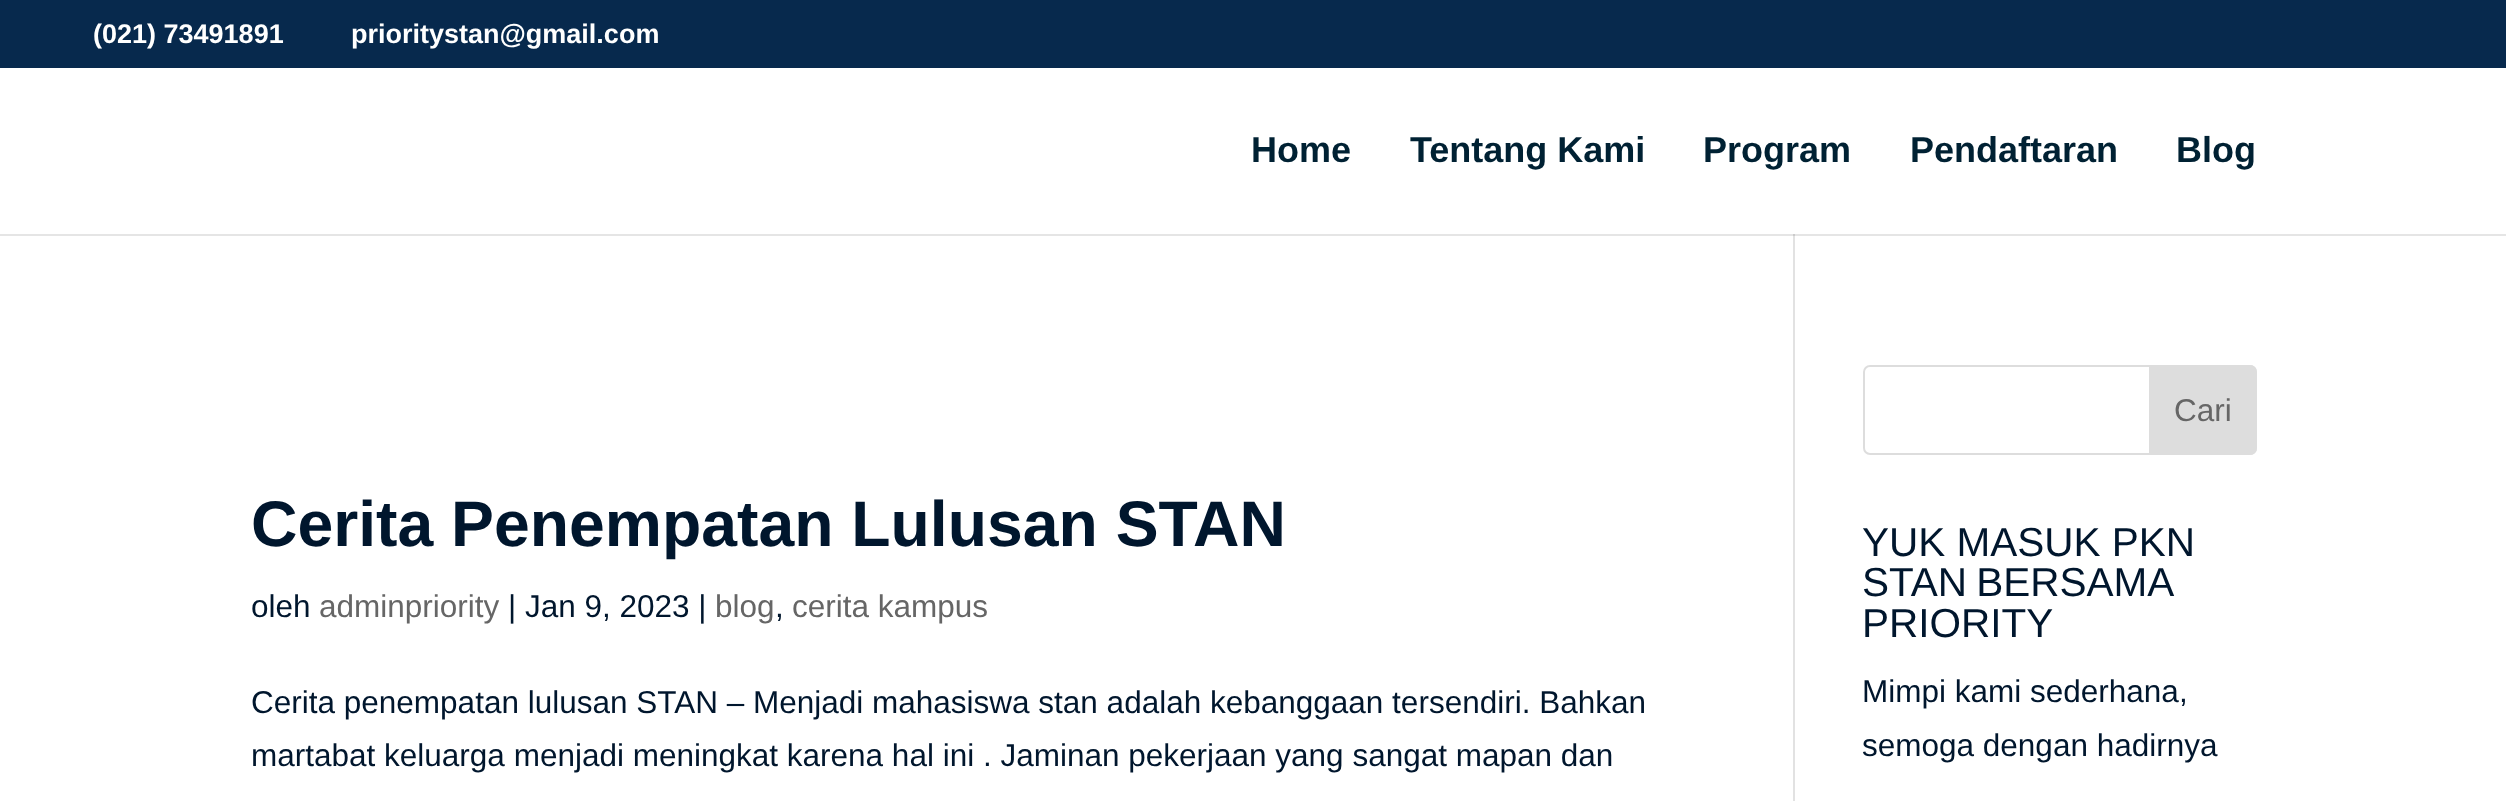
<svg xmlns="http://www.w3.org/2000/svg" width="2506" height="801">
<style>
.a{font:bold 27px Liberation Sans;fill:#fff}
.b{font:bold 36px Liberation Sans;fill:#002133}
.c{font:bold 64.3px Liberation Sans;fill:#00162d}
.d{font:31.5px Liberation Sans;fill:#00162d}
.e{font:31.5px Liberation Sans;fill:#666}
.f{font:40.5px Liberation Sans;fill:#00162d}
</style>
<rect width="100%" height="100%" fill="#fff"/>
<path fill="#07294d" d="M0 0h2506v68H0z"/>
<path fill="#e2e2e2" d="M1793 234h2v567H1793z"/>
<path fill="#0000001a" d="M0 234v2h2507v-166h-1v164z"/>
<rect fill="none" stroke="#ddd" stroke-width="2" x="1864" y="366" width="392" height="88" rx="6"/>
<path fill="#ddd" stroke="#ddd" stroke-width="2" d="M2150 366h100c3.5 0 6 2.5 6 6v76c0 3.5-2.5 6-6 6h-100z"/>
<text class="a" x="93" y="43">(021) 73491891</text>
<text class="a" x="351" y="43">prioritystan@gmail.com</text>
<text class="b" x="1251" y="162">Home</text>
<text class="b" x="1410" y="162">Tentang Kami</text>
<text class="b" x="1703" y="162">Program</text>
<text class="b" x="1910" y="162">Pendaftaran</text>
<text class="b" x="2176" y="162">Blog</text>
<text class="c" x="251" y="546">Cerita Penempatan Lulusan STAN</text>
<text class="d" x="251" y="617">oleh</text>
<text class="e" x="319" y="617">adminpriority</text>
<text class="d" x="508" y="617">| Jan 9, 2023 |</text>
<text class="e" x="715" y="617">blog</text>
<text class="d" x="775" y="617">,</text>
<text class="e" x="792" y="617">cerita kampus</text>
<text class="d" x="251" y="713">Cerita penempatan lulusan STAN – Menjadi mahasiswa stan adalah kebanggaan tersendiri. Bahkan</text>
<text class="d" x="251" y="766">martabat keluarga menjadi meningkat karena hal ini . Jaminan pekerjaan yang sangat mapan dan</text>
<text class="e" x="2174" y="421">Cari</text>
<text class="f" x="1862" y="556">YUK MASUK PKN</text>
<text class="f" x="1862" y="596" word-spacing="-2">STAN BERSAMA</text>
<text class="f" x="1862" y="637">PRIORITY</text>
<text class="d" x="1862" y="702">Mimpi kami sederhana,</text>
<text class="d" x="1862" y="756">semoga dengan hadirnya</text>
</svg>
